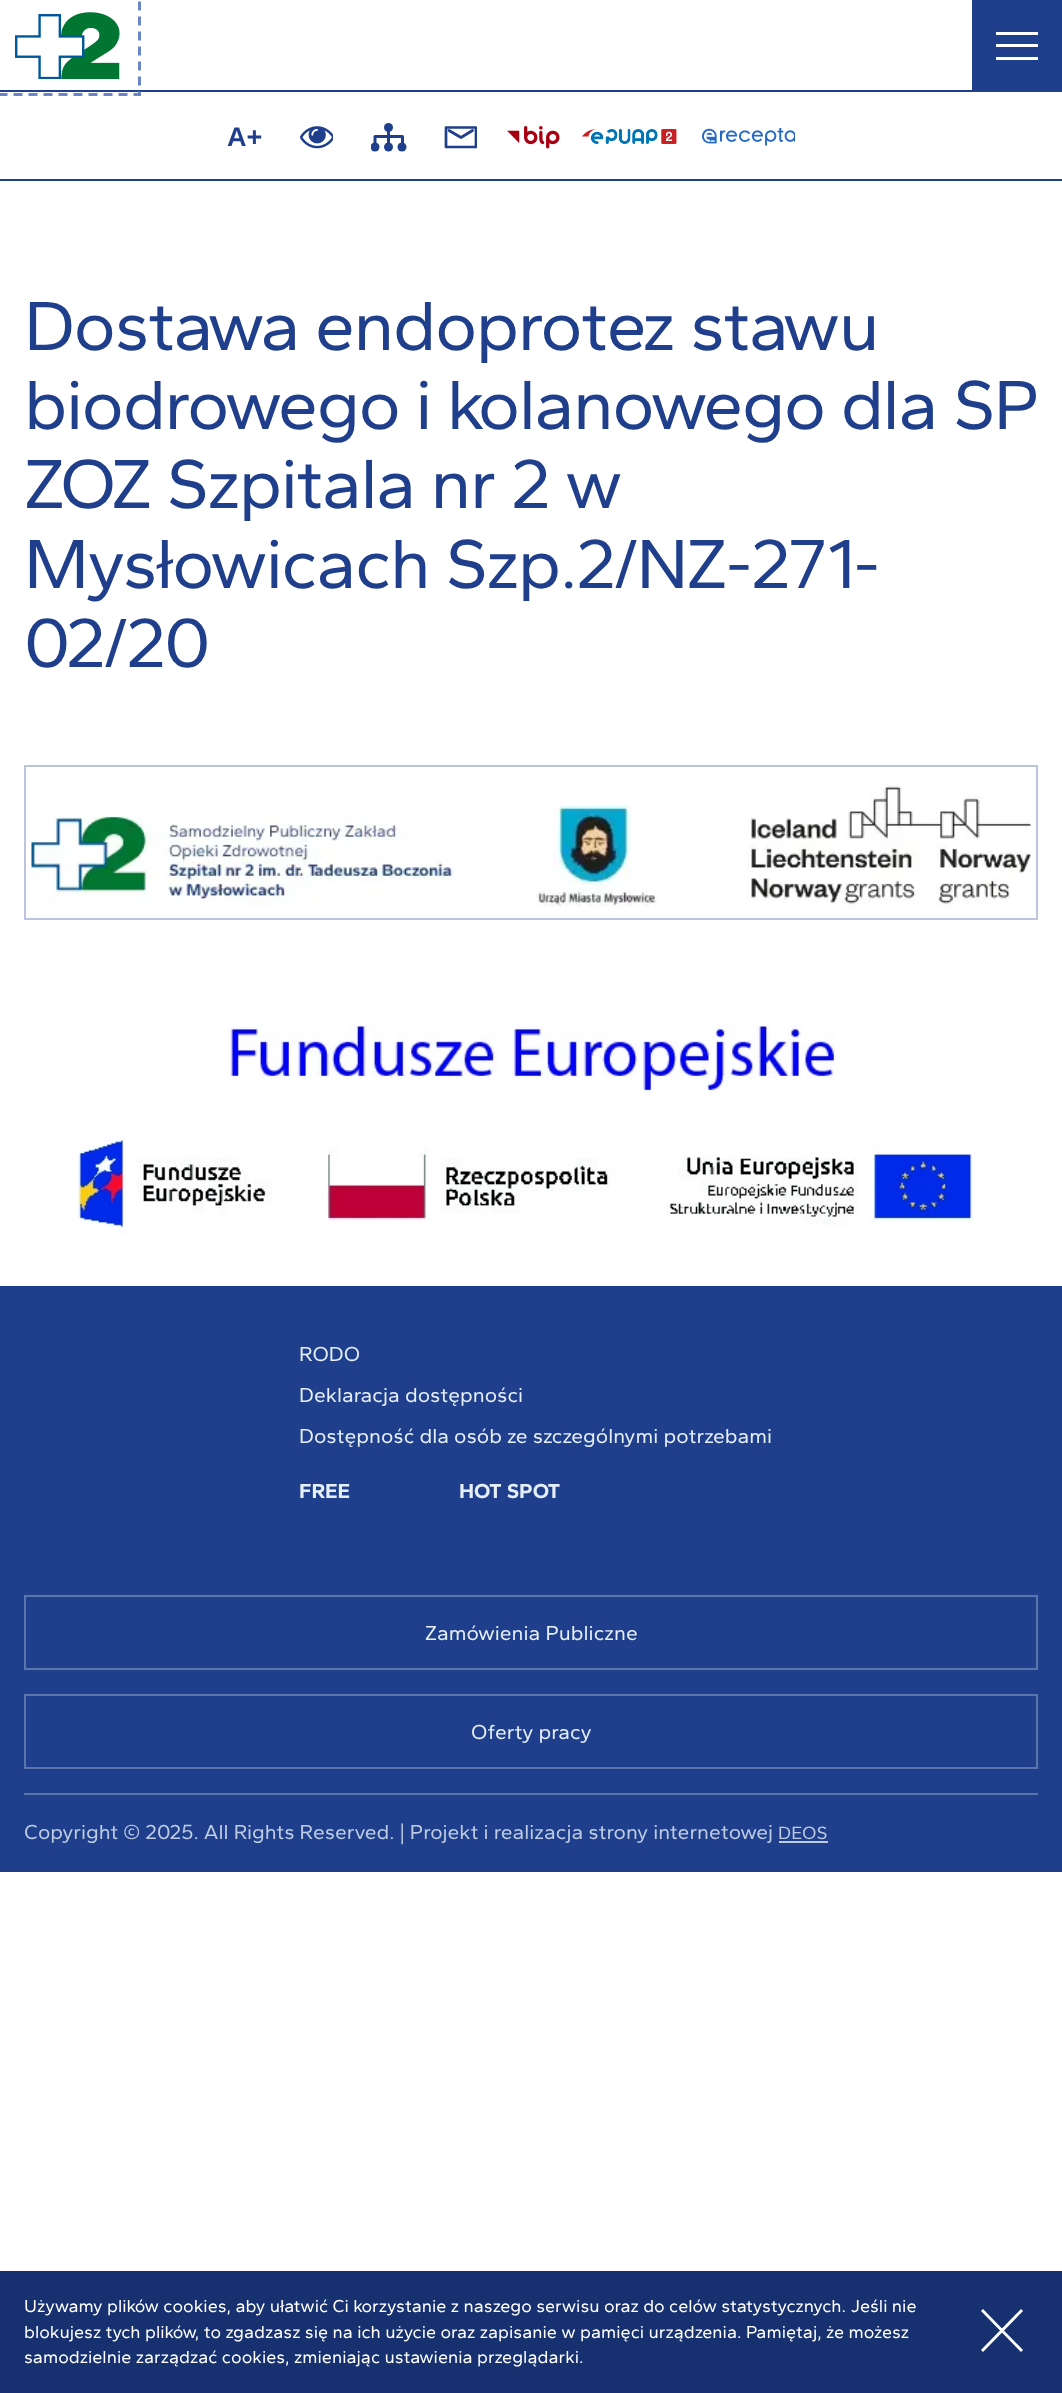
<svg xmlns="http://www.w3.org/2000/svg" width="1062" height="2393">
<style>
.a{font:bold 27px Liberation Sans;fill:#1f3f8c}
.b{font:72px Gantari;letter-spacing:-1.65px;fill:#1f3f8c}
.c{font:21px Gantari;fill:#e5eff8}
.d{font:bold 21px Gantari;fill:#e5eff8}
.e{font:21px Gantari;fill:#bdcce2}
.f{font:18.5px Gantari;fill:#bdcce2}
.g{font:18px Gantari;fill:#fff}
</style>
<defs>
<clipPath id="clip1"><path d="M371 123h36v29H371z"/></clipPath>
<clipPath id="clip2"><path d="M444 126h33v23H444z"/></clipPath>
</defs>
<rect width="100%" height="100%" fill="#fff"/>
<path fill="#1f3f8c" d="M0 179h1062v2H0z"/>
<path fill="#1f3f8c" d="M972 0h90v90H972z"/>
<path fill="#fff" d="M996 57h42v3H996z"/>
<path fill="#fff" d="M996 32h42v3H996z"/>
<path fill="#fff" d="M996 44h42v3H996z"/>
<image href="1.png" x="15" y="12" width="105" height="67"/>
<path fill="#1f3f8c" d="M0 90h1062v2H0z"/>
<path fill="none" stroke="#6b86c8" stroke-width="3" stroke-dasharray="9 6" d="M-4.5-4.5h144v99h-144z"/>
<image href="2.png" x="300" y="126" width="33" height="23"/>
<circle fill="#1f3f8c" cx="388.5" cy="127.5" r="4.5"/>
<g clip-path="url(#clip1)">
<circle fill="#1f3f8c" cx="375" cy="147" r="4.5"/>
</g>
<circle fill="#1f3f8c" cx="388.5" cy="147" r="4.5"/>
<circle fill="#1f3f8c" cx="402" cy="147" r="4.5"/>
<path fill="none" stroke="#1f3f8c" stroke-width="3" stroke-linecap="round" stroke-linejoin="round" d="M375 142.5v-6h27.5v6"/>
<path fill="none" stroke="#1f3f8c" stroke-width="3" stroke-linecap="round" d="M388.5 129.5v13"/>
<g clip-path="url(#clip2)">
<path fill="none" stroke="#1f3f8c" stroke-width="2.7" stroke-linecap="round" stroke-linejoin="round" d="M476 147v-19.5h-30v19.5z"/>
</g>
<path fill="none" stroke="#1f3f8c" stroke-width="2.7" stroke-linecap="round" stroke-linejoin="bevel" d="M449 130.5l12 7l11.5-7"/>
<image href="3.png" x="507" y="126" width="53" height="23"/>
<image href="4.png" x="582" y="129" width="95" height="15"/>
<image href="5.png" x="702" y="128" width="93" height="18"/>
<path fill="none" stroke="#bcc5dd" stroke-width="2" d="M25 766h1012v153H25z"/>
<image href="6.png" x="31" y="784" width="1000" height="123"/>
<image href="7.png" x="77" y="1023" width="897" height="212"/>
<path fill="#1f3f8c" d="M0 1286h1062v586H0z"/>
<path fill="none" stroke="#5a74ac" stroke-width="2" d="M25 1596h1012v73H25z"/>
<path fill="none" stroke="#5a74ac" stroke-width="2" d="M25 1695h1012v73H25z"/>
<path fill="#5a74ac" d="M24 1793h1014v2H24z"/>
<path fill="#bdcce2" d="M779 1841h49v2H779z"/>
<path fill="#163070" d="M0 2271h1062v122H0z"/>
<path fill="#fff" d="M981 2350l40-41l2 2l-40 41z"/>
<path fill="#fff" d="M983 2309l40 41l-2 2l-40-41z"/>
<text class="a" x="227" y="146">A+</text>
<text class="b" x="24" y="350">Dostawa endoprotez stawu</text>
<text class="b" x="24" y="429">biodrowego i kolanowego dla SP</text>
<text class="b" x="24" y="508">ZOZ Szpitala nr 2 w</text>
<text class="b" x="24" y="588">Mysłowicach Szp.2/NZ-271-</text>
<text class="b" x="24" y="667">02/20</text>
<text class="c" x="299" y="1361">RODO</text>
<text class="c" x="299" y="1402">Deklaracja dostępności</text>
<text class="c" x="299" y="1443">Dostępność dla osób ze szczególnymi potrzebami</text>
<text class="d" x="299" y="1498">FREE</text>
<text class="d" x="459" y="1498">HOT SPOT</text>
<text class="c" x="425" y="1640">Zamówienia Publiczne</text>
<text class="c" x="471" y="1739">Oferty pracy</text>
<text class="e" x="24" y="1839">Copyright © 2025. All Rights Reserved. | Projekt i realizacja strony internetowej</text>
<text class="f" x="778" y="1839">DEOS</text>
<text class="g" x="24" y="2312">Używamy plików cookies, aby ułatwić Ci korzystanie z naszego serwisu oraz do celów statystycznych. Jeśli nie</text>
<text class="g" x="24" y="2338">blokujesz tych plików, to zgadzasz się na ich użycie oraz zapisanie w pamięci urządzenia. Pamiętaj, że możesz</text>
<text class="g" x="24" y="2363">samodzielnie zarządzać cookies, zmieniając ustawienia przeglądarki.</text>
</svg>
